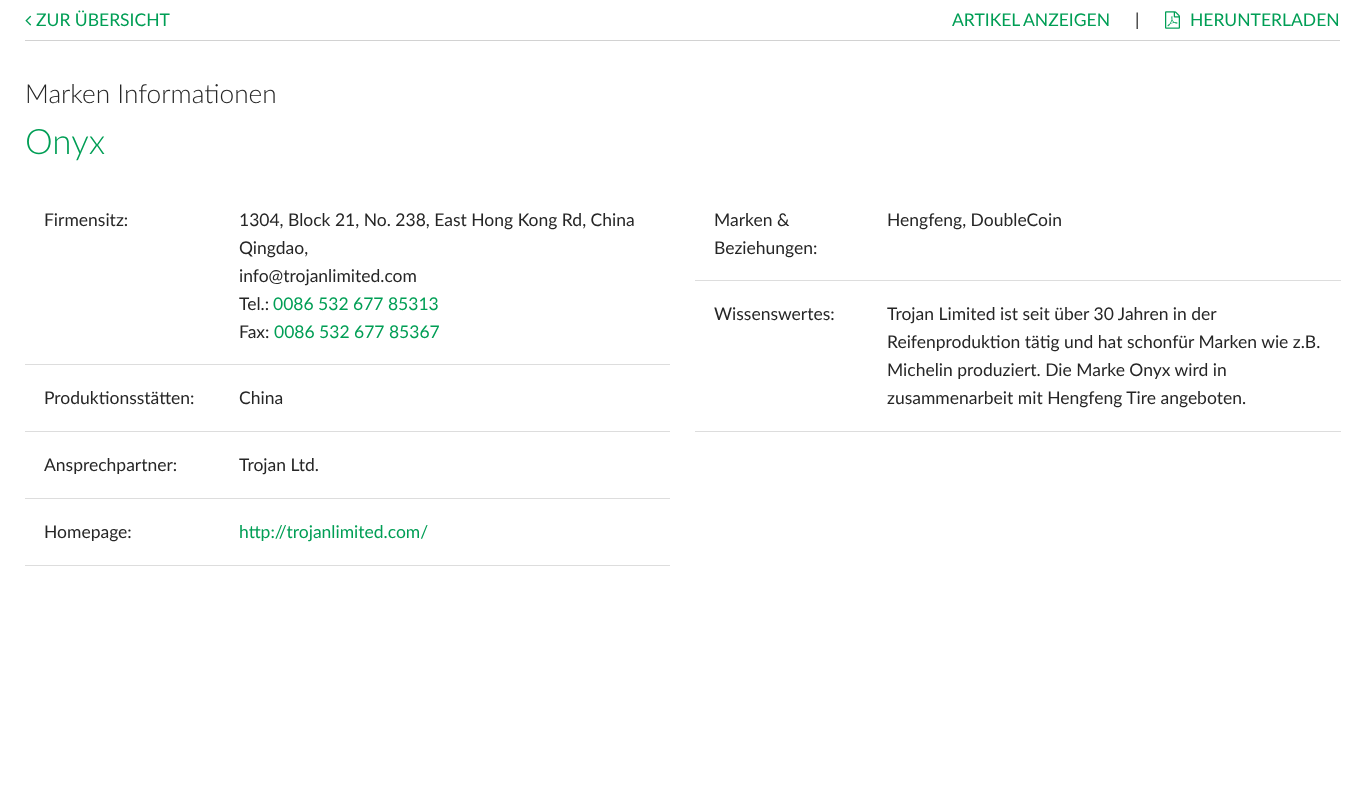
<svg xmlns="http://www.w3.org/2000/svg" width="1364" height="810">
<style>
.a{font:17.5px Lato;fill:#009e55}
.b{font:17.5px Lato;fill:#262626}
.c{font:300 26.25px Lato;fill:#262626}
.d{font:300 35px Lato;fill:#009e55}
</style>
<rect width="100%" height="100%" fill="#fff"/>
<path fill="#d2d2d2" d="M25 40h1315v1H25z"/>
<image href="1.png" x="25" y="15" width="7" height="11"/>
<image href="2.png" x="1165" y="11" width="15" height="18"/>
<path fill="#ddd" d="M25 364h645v1H25z"/>
<path fill="#ddd" d="M25 431h645v1H25z"/>
<path fill="#ddd" d="M25 498h645v1H25z"/>
<path fill="#ddd" d="M25 565h645v1H25z"/>
<path fill="#ddd" d="M695 280h646v1H695z"/>
<path fill="#ddd" d="M695 431h646v1H695z"/>
<text class="a" x="36" y="26">ZUR ÜBERSICHT</text>
<text class="a" x="952" y="26">ARTIKEL</text>
<text class="a" x="1023" y="26">ANZEIGEN</text>
<text class="b" x="1135" y="26">|</text>
<text class="a" x="1190" y="26">HERUNTERLADEN</text>
<text class="c" x="25" y="103">Marken Informationen</text>
<text class="d" x="25" y="154">Onyx</text>
<text class="b" x="44" y="226">Firmensitz:</text>
<text class="b" x="239" y="226">1304, Block 21, No. 238, East Hong Kong Rd, China</text>
<text class="b" x="239" y="254">Qingdao,</text>
<text class="b" x="239" y="282">info@trojanlimited.com</text>
<text class="b" x="239" y="310">Tel.:</text>
<text class="a" x="273" y="310">0086 532 677 85313</text>
<text class="b" x="239" y="338">Fax:</text>
<text class="a" x="274" y="338">0086 532 677 85367</text>
<text class="b" x="44" y="404">Produktionsstätten:</text>
<text class="b" x="239" y="404">China</text>
<text class="b" x="44" y="471">Ansprechpartner:</text>
<text class="b" x="239" y="471">Trojan Ltd.</text>
<text class="b" x="44" y="538">Homepage:</text>
<text class="a" x="239" y="538">http://trojanlimited.com/</text>
<text class="b" x="714" y="226">Marken &amp;</text>
<text class="b" x="714" y="254">Beziehungen:</text>
<text class="b" x="887" y="226">Hengfeng, DoubleCoin</text>
<text class="b" x="714" y="320">Wissenswertes:</text>
<text class="b" x="887" y="320">Trojan Limited ist seit über 30 Jahren in der</text>
<text class="b" x="887" y="348">Reifenproduktion tätig und hat schonfür Marken wie z.B.</text>
<text class="b" x="887" y="376">Michelin produziert. Die Marke Onyx wird in</text>
<text class="b" x="887" y="404">zusammenarbeit mit Hengfeng Tire angeboten.</text>
</svg>
